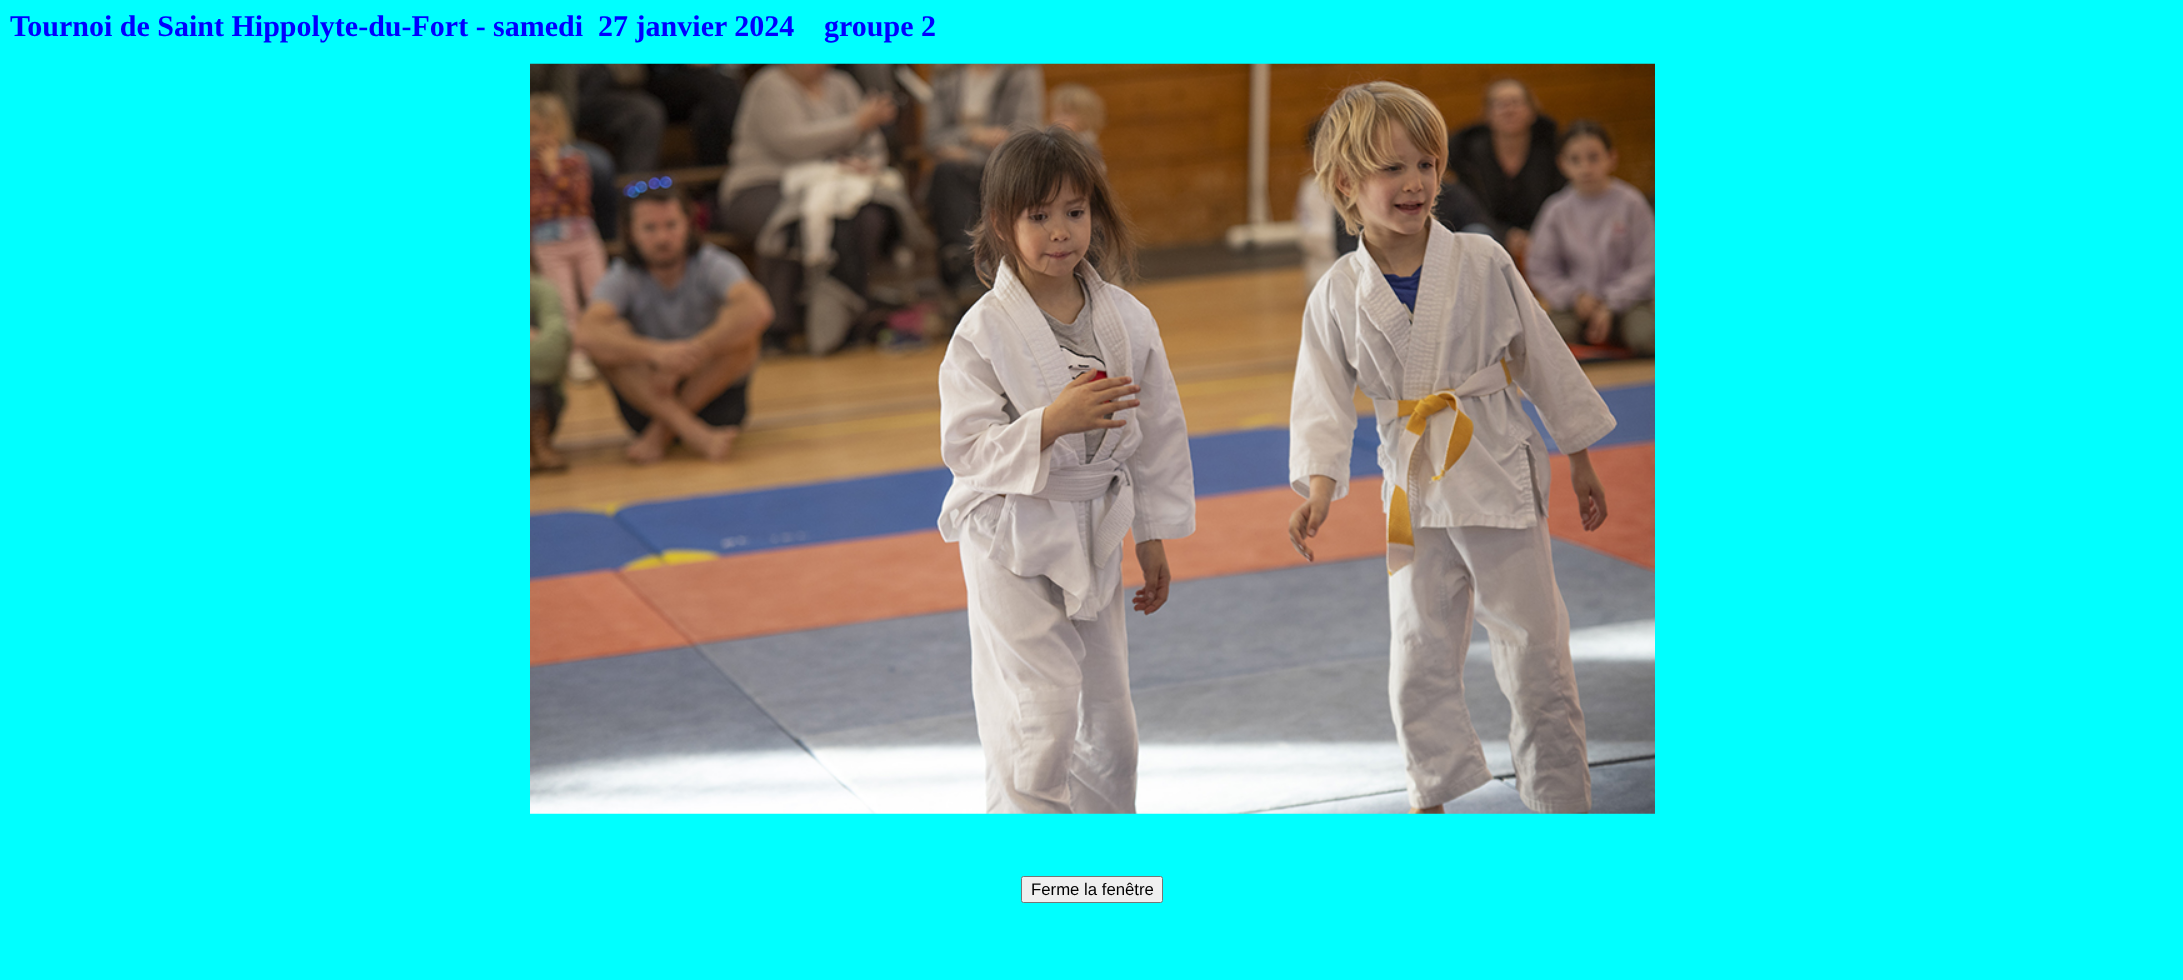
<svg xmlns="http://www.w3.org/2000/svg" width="2183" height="980">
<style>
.a{font:bold 30px Liberation Serif;fill:#00f}
.b{font:16.75px Liberation Sans;fill:#000}
</style>
<rect width="100%" height="100%" fill="#0ff"/>
<image href="1.png" x="530" y="63" width="1125" height="751"/>
<rect fill="#efefef" stroke="#767676" x="1021.5" y="876.5" width="141" height="26" rx="2"/>
<text class="a" xml:space="preserve" x="10" y="36">Tournoi de Saint Hippolyte-du-Fort - samedi  27 janvier 2024</text>
<text class="a" x="824" y="36">groupe 2</text>
<text class="b" x="1031" y="895">Ferme la fenêtre</text>
</svg>
